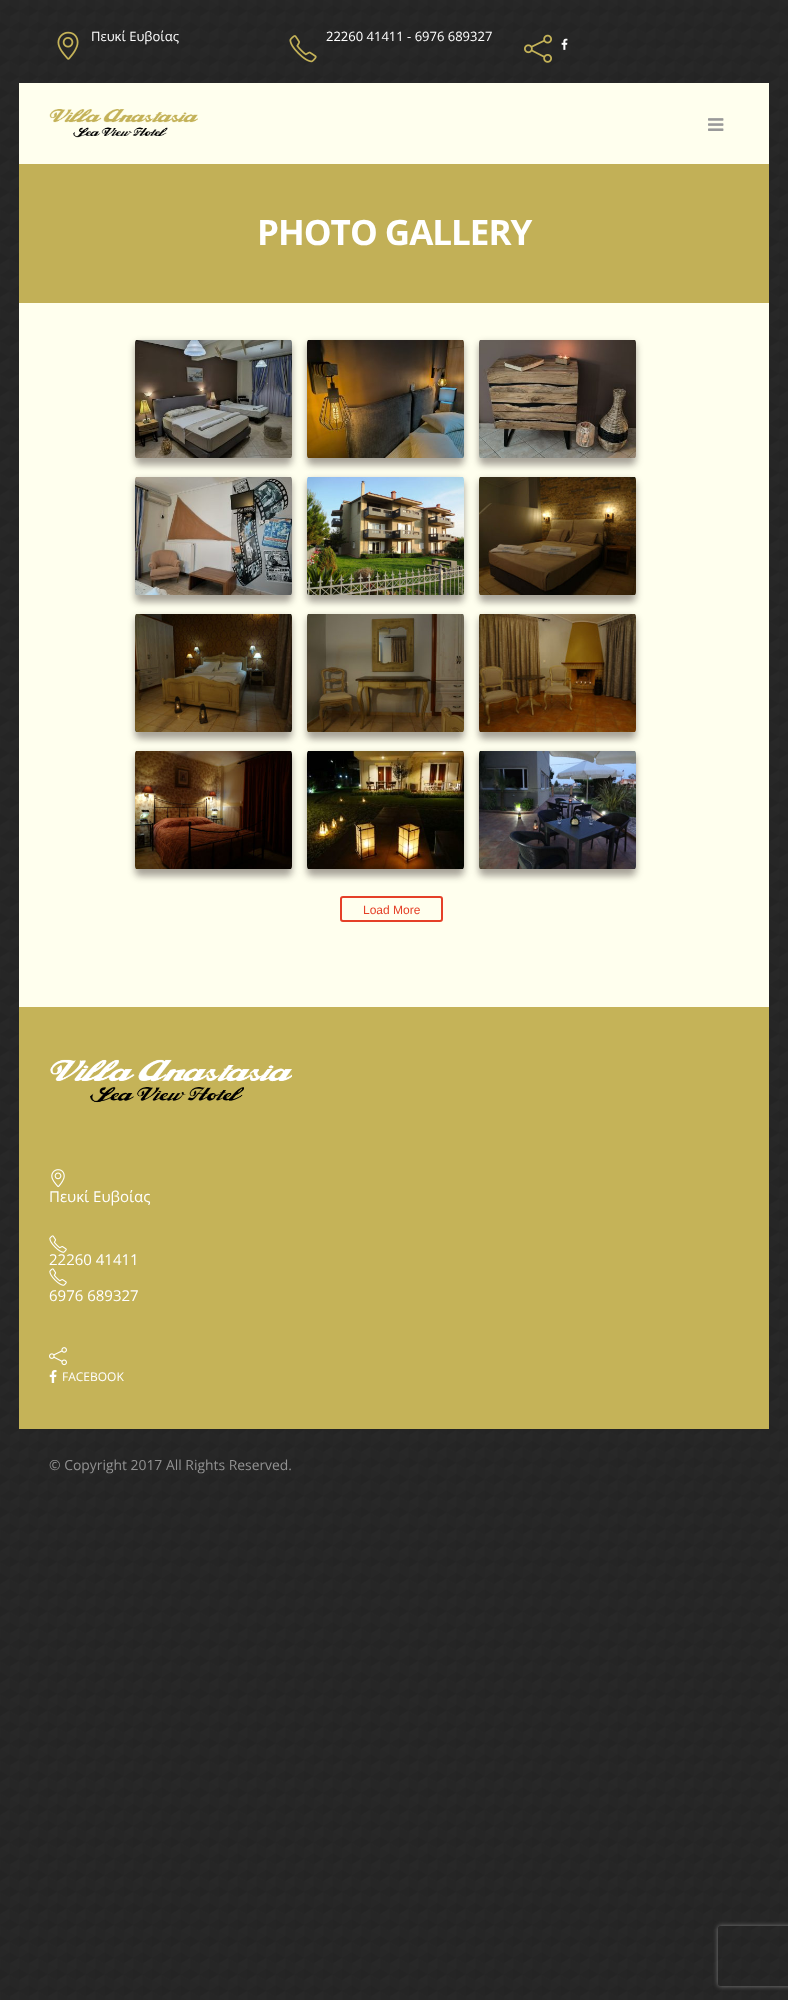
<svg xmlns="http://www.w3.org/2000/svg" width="788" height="2000">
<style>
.a{font:13px Open Sans;fill:#fff}
.b{font:bold 35px Open Sans;letter-spacing:-1px;fill:#fff}
.c{font:12px Liberation Sans;fill:#e54028}
.d{font:15px Open Sans;fill:#fff}
.e{font:12px Open Sans;fill:#fff}
.f{font:13.9px Open Sans;fill:#929292}
</style>
<defs>
<clipPath id="clip1"><path d="M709 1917h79v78h-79zm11 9h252c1 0 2 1 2 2v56c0 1-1 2-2 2h-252c-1 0-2-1-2-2v-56c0-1 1-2 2-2z" clip-rule="evenodd"/></clipPath>
</defs>
<rect width="100%" height="100%" fill="#fff"/>
<image href="1.png" x="0" y="0" width="788" height="2000"/>
<image href="2.png" x="57" y="31" width="22" height="29"/>
<image href="3.png" x="289" y="35" width="28" height="28"/>
<image href="4.png" x="524" y="34" width="28" height="29"/>
<image href="5.png" x="561" y="38" width="7" height="12"/>
<path fill="#ffe" d="M19 83h750v81H19z"/>
<image href="6.png" x="49" y="109" width="149" height="29"/>
<image href="7.png" x="708" y="118" width="16" height="13"/>
<path fill="#c2b057" d="M19 164h750v139H19z"/>
<path fill="#ffe" d="M19 303h750v704H19z"/>
<rect fill="#22191966" filter="blur(3.5px)" x="135" y="343" width="157" height="122" rx="5"/>
<image href="8.png" x="135" y="340" width="157" height="118"/>
<rect fill="#22191966" filter="blur(3.5px)" x="307" y="343" width="157" height="122" rx="5"/>
<image href="9.png" x="307" y="340" width="157" height="118"/>
<rect fill="#22191966" filter="blur(3.5px)" x="479" y="343" width="157" height="122" rx="5"/>
<image href="10.png" x="479" y="340" width="157" height="118"/>
<rect fill="#22191966" filter="blur(3.5px)" x="135" y="480" width="157" height="122" rx="5"/>
<image href="11.png" x="135" y="477" width="157" height="118"/>
<rect fill="#22191966" filter="blur(3.5px)" x="307" y="480" width="157" height="122" rx="5"/>
<image href="12.png" x="307" y="477" width="157" height="118"/>
<rect fill="#22191966" filter="blur(3.5px)" x="479" y="480" width="157" height="122" rx="5"/>
<image href="13.png" x="479" y="477" width="157" height="118"/>
<rect fill="#22191966" filter="blur(3.5px)" x="135" y="617" width="157" height="122" rx="5"/>
<image href="14.png" x="135" y="614" width="157" height="118"/>
<rect fill="#22191966" filter="blur(3.5px)" x="307" y="617" width="157" height="122" rx="5"/>
<image href="15.png" x="307" y="614" width="157" height="118"/>
<rect fill="#22191966" filter="blur(3.5px)" x="479" y="617" width="157" height="122" rx="5"/>
<image href="16.png" x="479" y="614" width="157" height="118"/>
<rect fill="#22191966" filter="blur(3.5px)" x="135" y="754" width="157" height="122" rx="5"/>
<image href="17.png" x="135" y="751" width="157" height="118"/>
<rect fill="#22191966" filter="blur(3.5px)" x="307" y="754" width="157" height="122" rx="5"/>
<image href="18.png" x="307" y="751" width="157" height="118"/>
<rect fill="#22191966" filter="blur(3.5px)" x="479" y="754" width="157" height="122" rx="5"/>
<image href="19.png" x="479" y="751" width="157" height="118"/>
<rect fill="none" stroke="#e54028" stroke-width="2" x="341" y="897" width="101" height="24" rx="2"/>
<path fill="#c5b358" d="M19 1007h750v422H19z"/>
<image href="20.png" x="50" y="1059" width="242" height="44"/>
<image href="21.png" x="51" y="1169" width="14" height="19"/>
<image href="22.png" x="49" y="1235" width="18" height="18"/>
<image href="22.png" x="49" y="1268" width="18" height="18"/>
<image href="23.png" x="49" y="1347" width="18" height="19"/>
<image href="24.png" x="49" y="1370" width="8" height="13"/>
<g clip-path="url(#clip1)">
<rect fill="#808080" filter="blur(2.5px)" x="718" y="1926" width="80" height="60" rx="2"/>
</g>
<text class="a" x="91" y="41">Πευκί Ευβοίας</text>
<text class="a" x="326" y="41">22260 41411 - 6976 689327</text>
<text class="b" x="257" y="245">PHOTO GALLERY</text>
<text class="c" x="363" y="914">Load More</text>
<text class="d" x="49" y="1202">Πευκί Ευβοίας</text>
<text class="d" x="49" y="1265">22260 41411</text>
<text class="d" x="49" y="1301">6976 689327</text>
<text class="e" x="62" y="1381">FACEBOOK</text>
<text class="f" x="49" y="1470">© Copyright 2017 All Rights Reserved.</text>
</svg>
